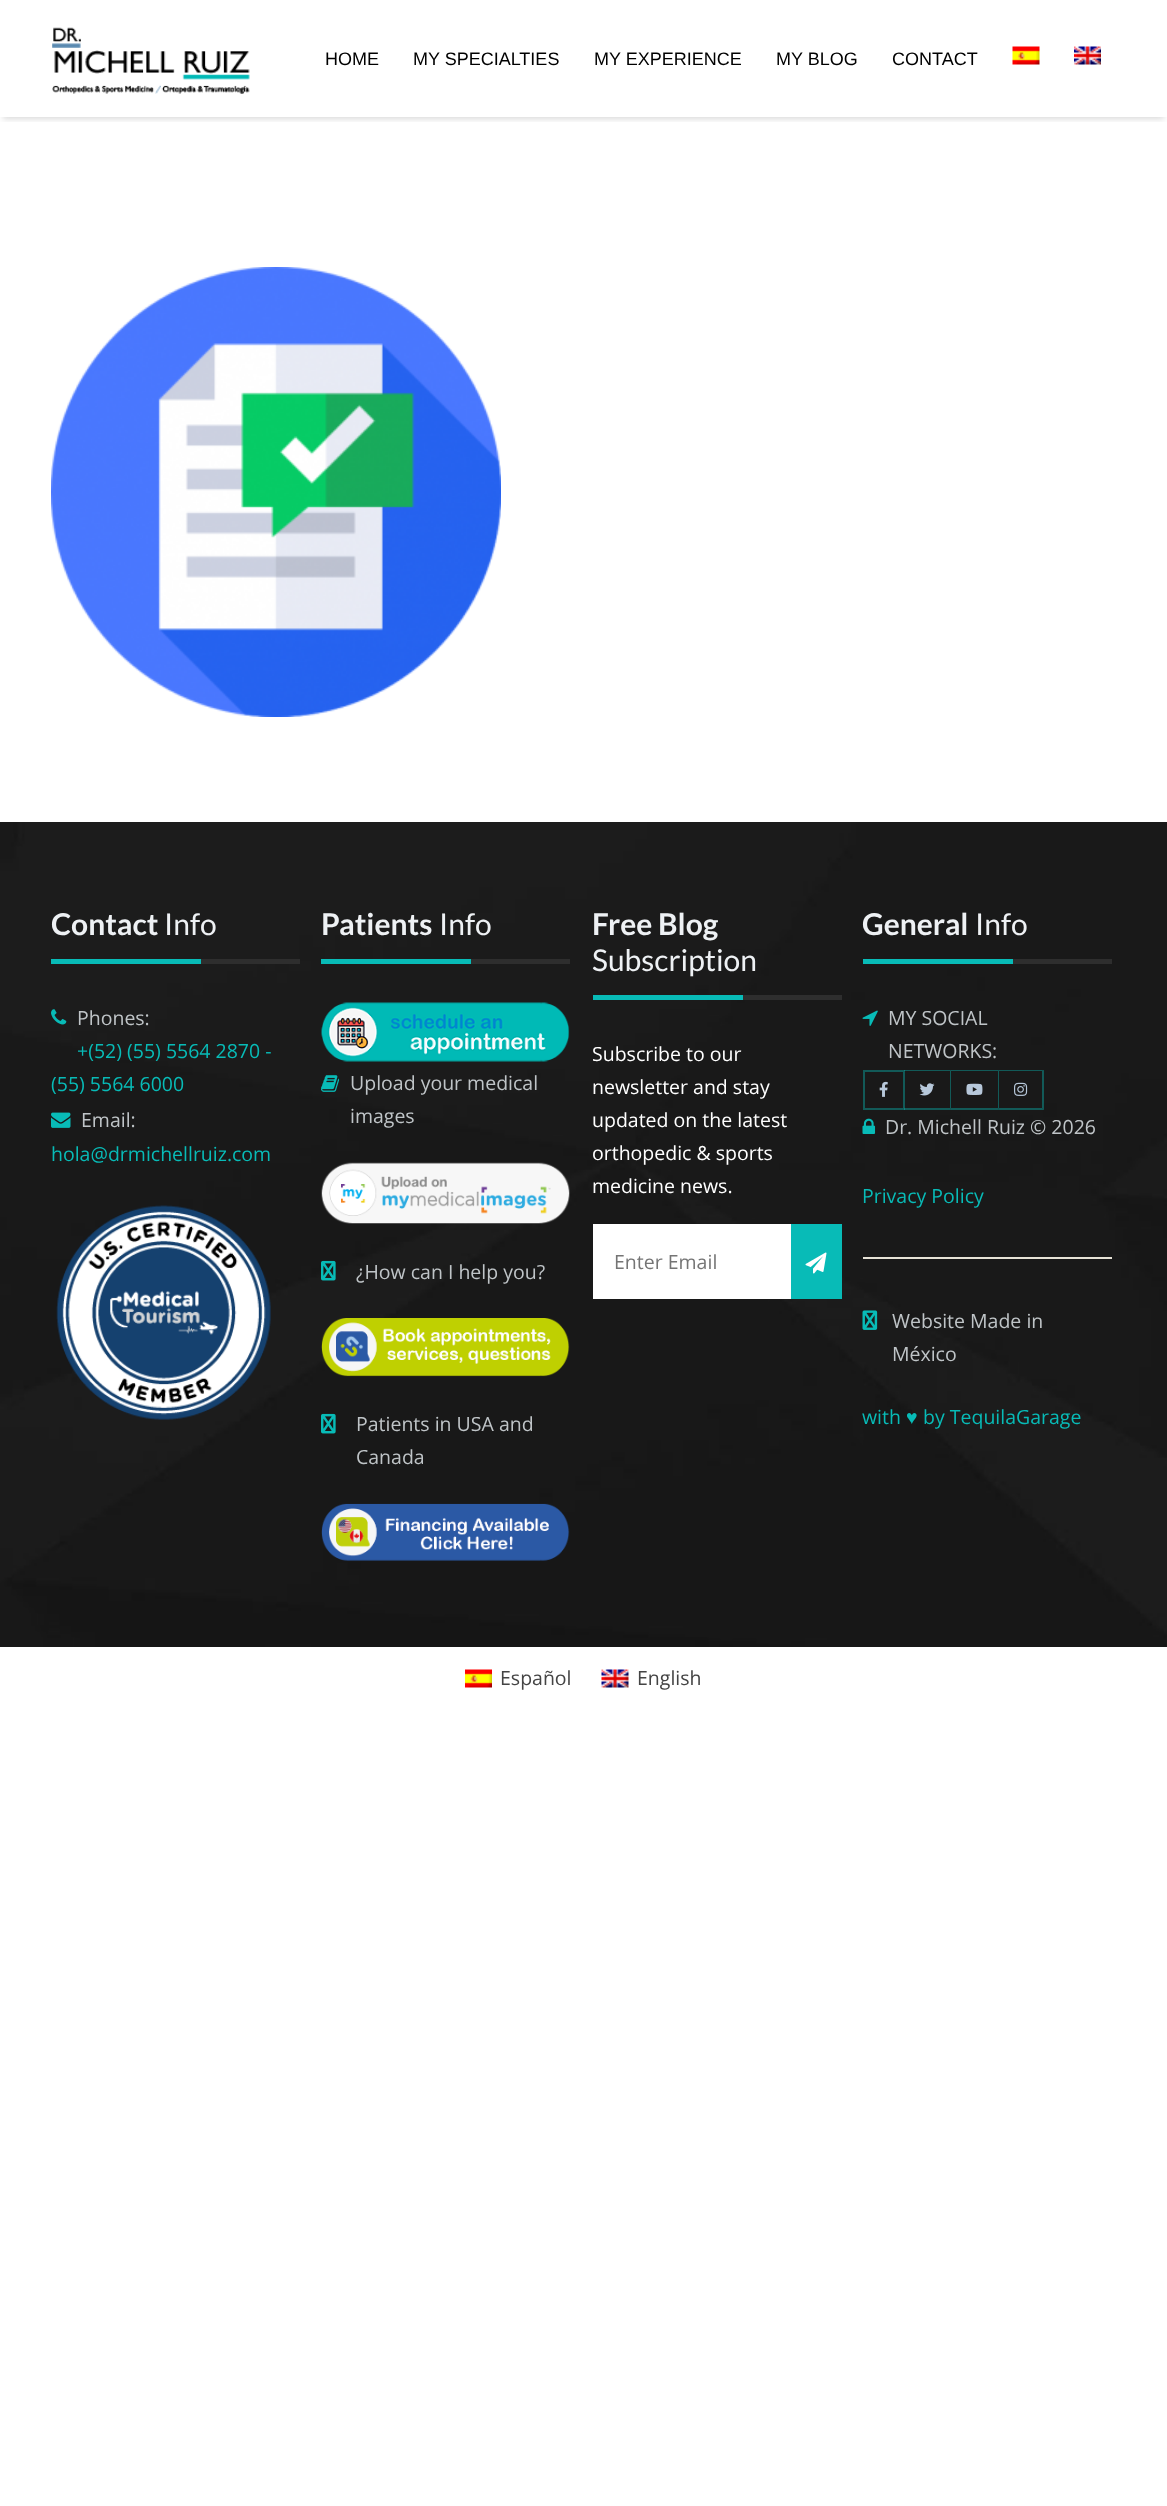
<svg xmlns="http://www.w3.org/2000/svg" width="1167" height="2506">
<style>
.a{font:18px Liberation Sans;fill:#000}
.b{font:bold 30px Lato;fill:#eef1f4}
.c{font:30px Lato;fill:#eef1f4}
.d{font:19.5px Open Sans;fill:#bfc4c7}
.e{font:19.5px Open Sans;fill:#08bbb7}
.f{font:19.5px Open Sans;fill:#fff}
.g{font:19.5px Open Sans;fill:#757575}
.h{font:19.5px Liberation Serif;fill:#08bbb7}
.i{font:19.5px Open Sans;fill:#444}
</style>
<defs>
<clipPath id="clip1"><path d="M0 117h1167v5H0z"/></clipPath>
</defs>
<rect width="100%" height="100%" fill="#fff"/>
<g clip-path="url(#clip1)">
<path fill="#00000026" filter="blur(3px)" d="M3 8h1161v111H3z"/>
</g>
<image href="1.png" x="52" y="27" width="198" height="67"/>
<image href="2.png" x="1012" y="46" width="28" height="19"/>
<image href="3.png" x="1074" y="46" width="27" height="19"/>
<image href="4.png" x="51" y="267" width="450" height="450"/>
<image href="5.png" x="0" y="822" width="1167" height="825"/>
<path fill="#2e2e2e" d="M201 959h99v5H201z"/>
<path fill="#08bbb7" d="M51 959h150v5H51z"/>
<image href="6.png" x="51" y="1009" width="16" height="16"/>
<image href="7.png" x="51" y="1112" width="20" height="16"/>
<image href="8.png" x="56" y="1205" width="215" height="215"/>
<path fill="#2e2e2e" d="M471 959h99v5H471z"/>
<path fill="#08bbb7" d="M321 959h150v5H321z"/>
<image href="9.png" x="321" y="1002" width="249" height="60"/>
<image href="10.png" x="321" y="1075" width="19" height="17"/>
<image href="11.png" x="321" y="1162" width="249" height="62"/>
<image href="12.png" x="321" y="1260" width="15" height="21"/>
<image href="13.png" x="321" y="1318" width="249" height="59"/>
<image href="14.png" x="321" y="1413" width="15" height="21"/>
<image href="15.png" x="321" y="1503" width="249" height="58"/>
<path fill="#2e2e2e" d="M743 995h99v5H743z"/>
<path fill="#08bbb7" d="M593 995h150v5H593z"/>
<path fill="#fff" d="M593 1224h198v75H593z"/>
<path fill="#08bbb7" d="M791 1224h51v75H791z"/>
<image href="16.png" x="805" y="1252" width="22" height="22"/>
<path fill="#2e2e2e" d="M1013 959h99v5H1013z"/>
<path fill="#08bbb7" d="M863 959h150v5H863z"/>
<image href="17.png" x="862" y="1010" width="16" height="16"/>
<path fill="none" stroke="#125a58" stroke-width="2" d="M864 1071h40v38H864z"/>
<image href="18.png" x="879" y="1081" width="9" height="16"/>
<path fill="#08bbb766" d="M904 1070h47l-1 1h-46z"/>
<path fill="#08bbb766" d="M951 1070v40l-1-2v-37z"/>
<path fill="#08bbb766" d="M951 1110h-47v-2h46z"/>
<image href="19.png" x="919" y="1083" width="16" height="13"/>
<path fill="#125a58" d="M951 1070h48l-1 1h-47z"/>
<path fill="#08bbb766" d="M999 1070v40l-1-2v-37z"/>
<path fill="#08bbb766" d="M999 1110h-48v-2h47z"/>
<image href="20.png" x="966" y="1083" width="17" height="12"/>
<path fill="#125a58" d="M999 1070h45l-2 1h-43z"/>
<path fill="#08bbb766" d="M1044 1070v40l-2-2v-37z"/>
<path fill="#08bbb766" d="M1044 1110h-45v-2h43z"/>
<image href="21.png" x="1014" y="1082" width="14" height="14"/>
<image href="22.png" x="862" y="1118" width="14" height="16"/>
<path fill="#e6e2d6" d="M863 1257h249v2H863z"/>
<image href="23.png" x="862" y="1310" width="16" height="20"/>
<image href="24.png" x="465" y="1669" width="27" height="19"/>
<image href="25.png" x="601" y="1669" width="28" height="19"/>
<text class="a" x="325" y="65">HOME</text>
<text class="a" x="413" y="65">MY SPECIALTIES</text>
<text class="a" x="594" y="65">MY EXPERIENCE</text>
<text class="a" x="776" y="65">MY BLOG</text>
<text class="a" x="892" y="65">CONTACT</text>
<text class="b" x="51" y="935">Contact</text>
<text class="c" x="164" y="935">Info</text>
<text class="d" x="77" y="1025">Phones:</text>
<text class="e" x="77" y="1058">+(52) (55) 5564 2870 -</text>
<text class="e" x="51" y="1091">(55) 5564 6000</text>
<text class="d" x="81" y="1127">Email:</text>
<text class="e" x="51" y="1161">hola@drmichellruiz.com</text>
<text class="b" x="321" y="935">Patients</text>
<text class="c" x="439" y="935">Info</text>
<text class="d" x="350" y="1090">Upload your medical</text>
<text class="d" x="350" y="1123">images</text>
<text class="d" x="356" y="1279">¿How can I help you?</text>
<text class="d" x="356" y="1431">Patients in USA and</text>
<text class="d" x="356" y="1464">Canada</text>
<text class="b" x="592" y="935">Free Blog</text>
<text class="c" x="592" y="971">Subscription</text>
<text class="f" x="592" y="1061">Subscribe to our</text>
<text class="f" x="592" y="1094">newsletter and stay</text>
<text class="f" x="592" y="1127">updated on the latest</text>
<text class="f" x="592" y="1160">orthopedic &amp; sports</text>
<text class="f" x="592" y="1193">medicine news.</text>
<text class="g" x="614" y="1269">Enter Email</text>
<text class="b" x="862" y="935">General</text>
<text class="c" x="975" y="935">Info</text>
<text class="d" x="888" y="1025">MY SOCIAL</text>
<text class="d" x="888" y="1058">NETWORKS:</text>
<text class="d" x="885" y="1134">Dr. Michell Ruiz © 2026</text>
<text class="e" x="862" y="1203">Privacy Policy</text>
<text class="d" x="892" y="1328">Website Made in</text>
<text class="d" x="892" y="1361">México</text>
<text class="e" x="862" y="1424">with</text>
<text class="h" x="906" y="1424">♥</text>
<text class="e" x="923" y="1424">by TequilaGarage</text>
<text class="i" x="500" y="1685">Español</text>
<text class="i" x="637" y="1685">English</text>
</svg>
